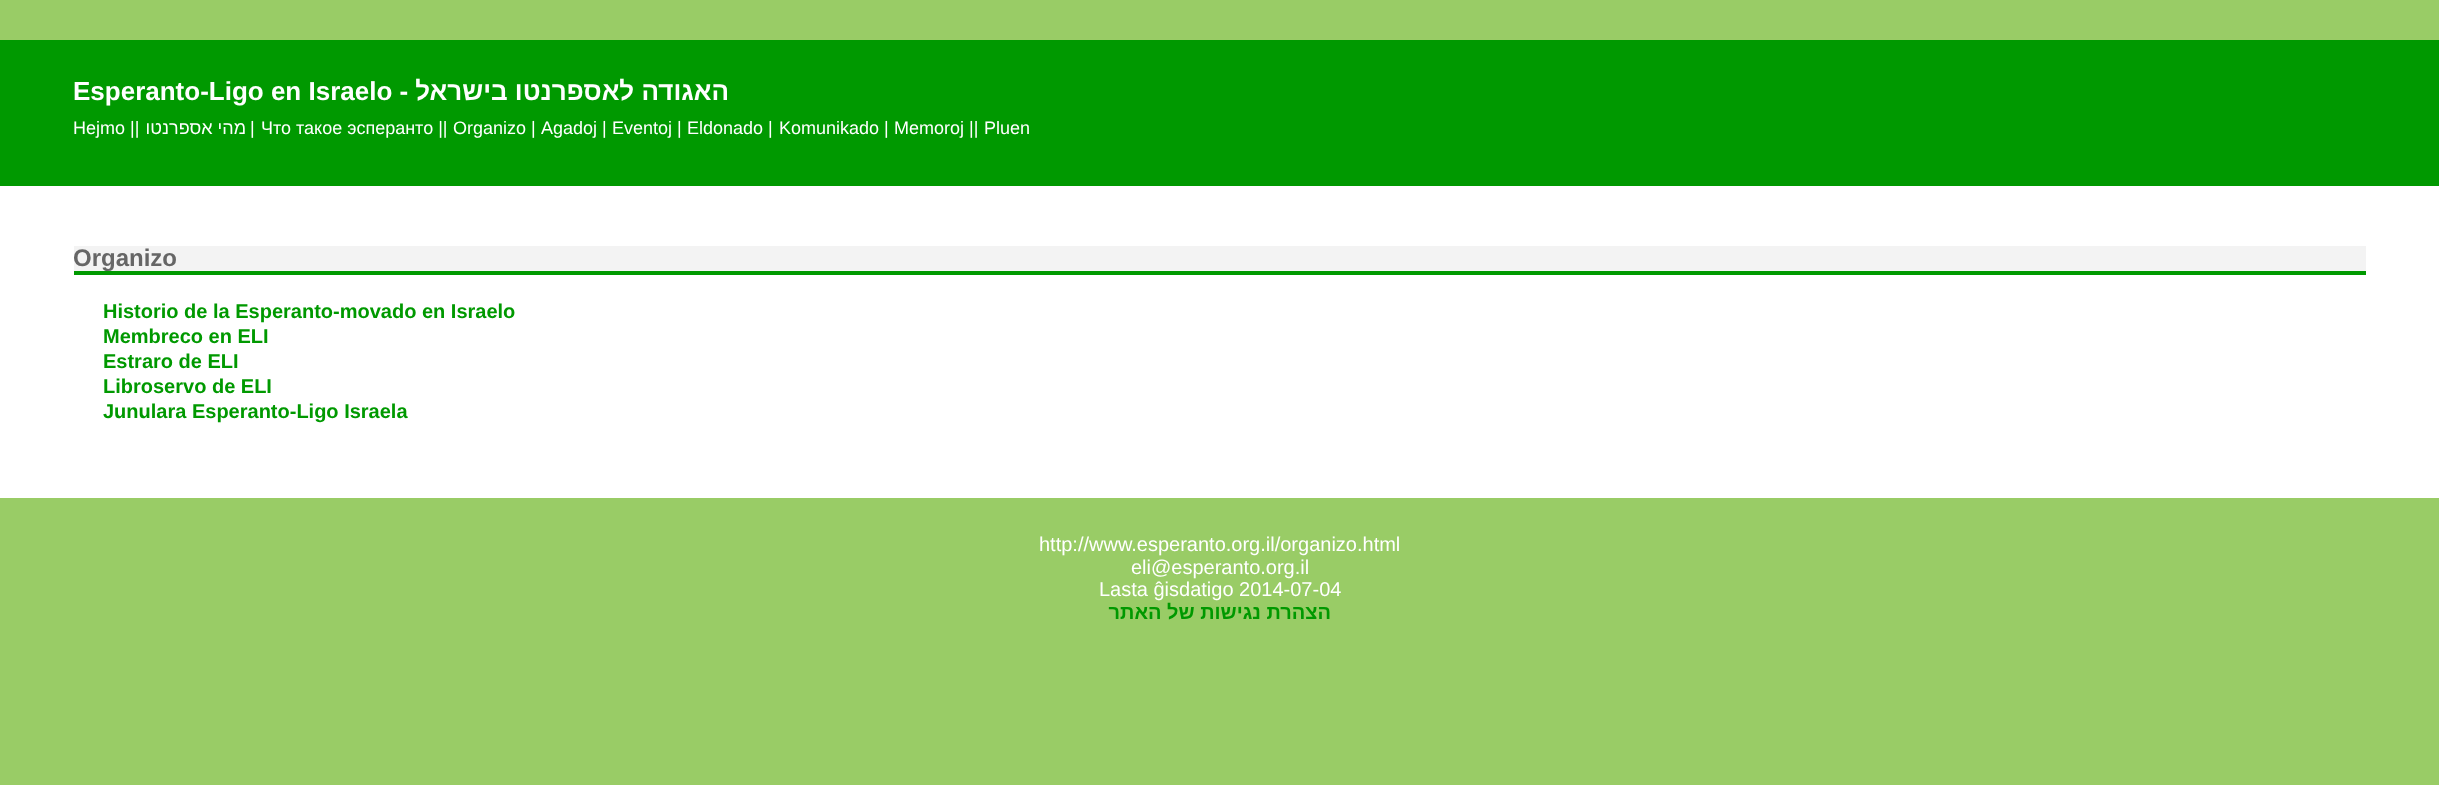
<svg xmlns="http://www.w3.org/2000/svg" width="2439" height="785">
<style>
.a{font:bold 26px Liberation Sans;fill:#fff}
.b{font:bold 26px Liberation Sans;direction:rtl;fill:#fff}
.c{font:18px Liberation Sans;fill:#fff}
.d{font:18px Liberation Sans;direction:rtl;fill:#fff}
.e{font:bold 24px Liberation Sans;fill:#666}
.f{font:bold 20px Liberation Sans;fill:#090}
.g{font:20px Liberation Sans;fill:#fff}
.h{font:bold 20px Liberation Sans;direction:rtl;fill:#090}
</style>
<rect width="100%" height="100%" fill="#9c6"/>
<path fill="#090" d="M0 40h2439v146H0z"/>
<path fill="#fff" d="M0 186h2439v312H0z"/>
<path fill="#f3f3f3" d="M74 246h2292v25H74z"/>
<path fill="#090" d="M74 271h2292v4H74z"/>
<text class="a" x="73" y="100">Esperanto-Ligo en Israelo -</text>
<text class="b" x="729" y="100">האגודה לאספרנטו בישראל</text>
<text class="c" x="73" y="134">Hejmo ||</text>
<text class="d" x="246" y="134">מהי אספרנטו</text>
<text class="c" x="250" y="134">|</text>
<text class="c" x="261" y="134">Что такое эсперанто ||</text>
<text class="c" x="453" y="134">Organizo |</text>
<text class="c" x="541" y="134">Agadoj |</text>
<text class="c" x="612" y="134">Eventoj |</text>
<text class="c" x="687" y="134">Eldonado |</text>
<text class="c" x="779" y="134">Komunikado |</text>
<text class="c" x="894" y="134">Memoroj ||</text>
<text class="c" x="984" y="134">Pluen</text>
<text class="e" x="73" y="266">Organizo</text>
<text class="f" x="103" y="318">Historio de la Esperanto-movado en Israelo</text>
<text class="f" x="103" y="343">Membreco en ELI</text>
<text class="f" x="103" y="368">Estraro de ELI</text>
<text class="f" x="103" y="393">Libroservo de ELI</text>
<text class="f" x="103" y="418">Junulara Esperanto-Ligo Israela</text>
<text class="g" x="1039" y="551">http://www.esperanto.org.il/organizo.html</text>
<text class="g" x="1131" y="574">eli@esperanto.org.il</text>
<text class="g" x="1099" y="596">Lasta ĝisdatigo 2014-07-04</text>
<text class="h" x="1331" y="619">הצהרת נגישות של האתר</text>
</svg>
